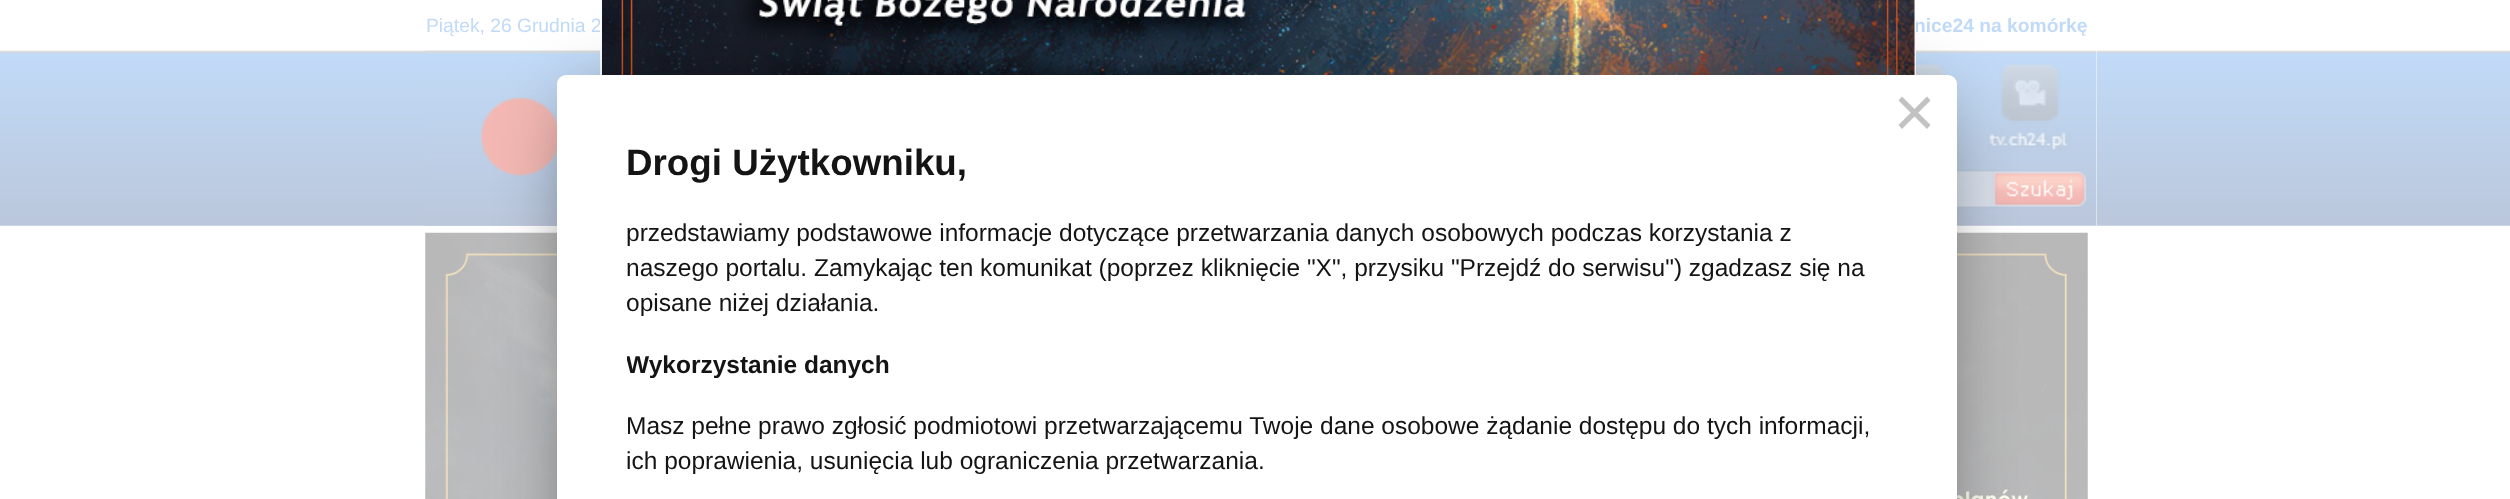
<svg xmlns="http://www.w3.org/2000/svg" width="2510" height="499">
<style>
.a{font:19.25px Liberation Sans;fill:#c1daf7}
.b{font:bold 19.25px Liberation Sans;fill:#c1daf7}
.c{font:bold 36.75px Liberation Sans;fill:#141414}
.d{font:24.5px Liberation Sans;fill:#141414}
.e{font:bold 24.5px Liberation Sans;fill:#141414}
</style>
<defs>
<clipPath id="clip1"><path d="M627 145h1260v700H627z"/></clipPath>
</defs>
<rect width="100%" height="100%" fill="#fff"/>
<image href="2.png" x="0" y="50" width="2510" height="176"/>
<path fill="#fff" d="M417 50h1680v176H417z"/>
<image href="3.png" x="416" y="50" width="1681" height="176"/>
<image href="4.png" x="425" y="50" width="175" height="176"/>
<image href="5.png" x="1916" y="62" width="38" height="16"/>
<image href="6.png" x="1987" y="62" width="85" height="91"/>
<image href="7.png" x="1957" y="169" width="131" height="40"/>
<image href="8.png" x="425" y="232" width="1663" height="267"/>
<text class="a" x="426" y="32">Piątek, 26 Grudnia 2</text>
<text class="b" x="1914" y="32">nice24 na komórkę</text>
<path fill="#fff" d="M600 20h1316v55H600z"/>
<image href="1.png" x="602" y="0" width="1313" height="75"/>
<path fill="#000000bf" filter="blur(41px)" d="M590 109h1333v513H590z"/>
<rect fill="#fff" x="557" y="75" width="1400" height="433" rx="9"/>
<path fill="#c2c2c2" d="M1927 96.5l3.5 4l-28.5 28.5l-3.5-4z"/>
<path fill="#c2c2c2" d="M1898.5 100.5l3.5-4l28.5 28.5l-3.5 4z"/>
<text class="c" x="626" y="175">Drogi Użytkowniku,</text>
<text class="d" x="626" y="241">przedstawiamy podstawowe informacje dotyczące przetwarzania danych osobowych podczas korzystania z</text>
<text class="d" x="626" y="276">naszego portalu. Zamykając ten komunikat (poprzez kliknięcie "X", przysiku "Przejdź do serwisu") zgadzasz się na</text>
<g clip-path="url(#clip1)">
<text class="d" x="626" y="311">opisane niżej działania.</text>
<text class="e" x="626" y="373">Wykorzystanie danych</text>
</g>
<text class="d" x="626" y="434">Masz pełne prawo zgłosić podmiotowi przetwarzającemu Twoje dane osobowe żądanie dostępu do tych informacji,</text>
<text class="d" x="626" y="469">ich poprawienia, usunięcia lub ograniczenia przetwarzania.</text>
</svg>
